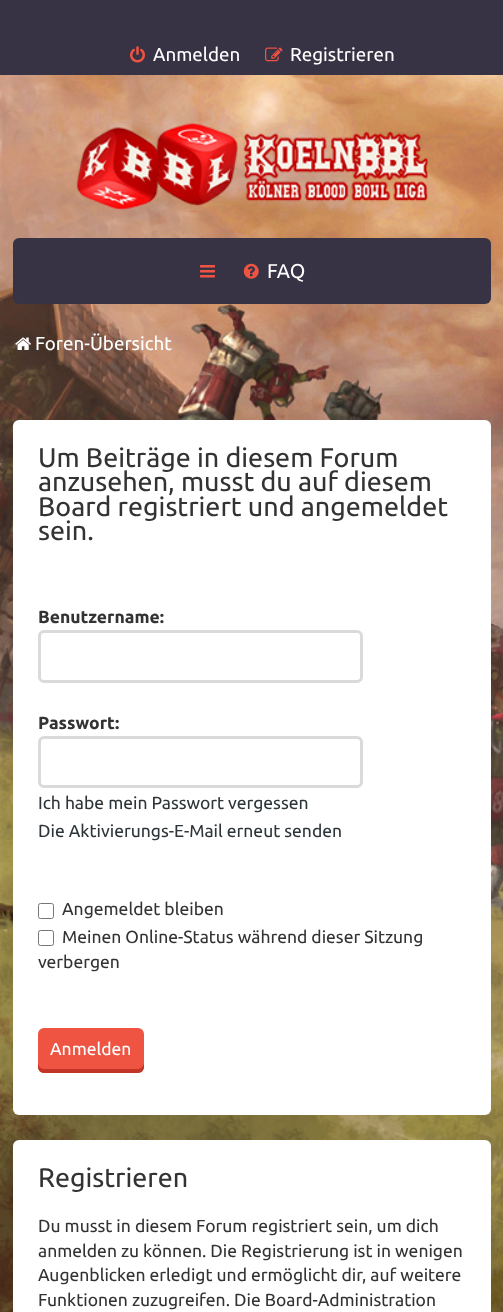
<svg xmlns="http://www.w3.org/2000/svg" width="503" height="1312">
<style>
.a{font:18.75px Ubuntu;fill:#fff}
.b{font:20px Ubuntu;fill:#fff}
.c{font:26.9px Ubuntu;fill:#333}
.d{font:bold 17.5px Ubuntu;fill:#333}
.e{font:17.5px Ubuntu;fill:#2e3539}
.f{font:17.5px Ubuntu;fill:#333}
.g{font:17.5px Ubuntu;fill:#fff}
</style>
<rect width="100%" height="100%" fill="#fff"/>
<image href="1.png" x="0" y="75" width="503" height="1237"/>
<path fill="#383245" d="M0 0h503v75H0z"/>
<image href="2.png" x="130" y="46" width="15" height="17"/>
<image href="3.png" x="265" y="47" width="18" height="15"/>
<image href="4.png" x="76" y="122" width="352" height="90"/>
<rect fill="#383245" x="13" y="238" width="478" height="66" rx="6"/>
<image href="5.png" x="200" y="265" width="15" height="13"/>
<image href="6.png" x="243" y="263" width="16" height="16"/>
<image href="7.png" x="15" y="337" width="16" height="13"/>
<rect fill="#fff" x="13" y="420" width="478" height="695" rx="6"/>
<rect fill="none" stroke="#dadada" stroke-width="3" x="39.5" y="631.5" width="322" height="50" rx="4.5"/>
<rect fill="none" stroke="#dadada" stroke-width="3" x="39.5" y="737.5" width="322" height="49" rx="4.5"/>
<rect fill="none" stroke="#767676" x="38.5" y="903.5" width="15" height="15" rx="2"/>
<rect fill="none" stroke="#767676" x="38.5" y="930.5" width="15" height="15" rx="2"/>
<rect fill="#ef5443" x="38" y="1028" width="106" height="45" rx="6"/>
<path fill="#c23526" d="M38 1062v5c0 3 3 6 6 6h94c3 0 6-3 6-6v-5c0 4-3 7-6 7h-94c-4 0-6-3-6-7z"/>
<rect fill="#fff" x="13" y="1140" width="478" height="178" rx="6"/>
<text class="a" x="153" y="61">Anmelden</text>
<text class="a" x="290" y="61">Registrieren</text>
<text class="b" x="267" y="278">FAQ</text>
<text class="a" x="35" y="350">Foren-Übersicht</text>
<text class="c" x="38" y="467">Um Beiträge in diesem Forum</text>
<text class="c" x="38" y="491">anzusehen, musst du auf diesem</text>
<text class="c" x="38" y="516">Board registriert und angemeldet</text>
<text class="c" x="38" y="540">sein.</text>
<text class="d" x="38" y="623">Benutzername:</text>
<text class="d" x="38" y="729">Passwort:</text>
<text class="e" x="38" y="809">Ich habe mein Passwort vergessen</text>
<text class="e" x="38" y="837">Die Aktivierungs-E-Mail erneut senden</text>
<text class="f" x="62" y="915">Angemeldet bleiben</text>
<text class="f" x="62" y="943">Meinen Online-Status während dieser Sitzung</text>
<text class="f" x="38" y="968">verbergen</text>
<text class="g" x="50" y="1055">Anmelden</text>
<text class="c" x="38" y="1187">Registrieren</text>
<text class="f" x="38" y="1232">Du musst in diesem Forum registriert sein, um dich</text>
<text class="f" x="38" y="1257">anmelden zu können. Die Registrierung ist in wenigen</text>
<text class="f" x="38" y="1281">Augenblicken erledigt und ermöglicht dir, auf weitere</text>
<text class="f" x="38" y="1306">Funktionen zuzugreifen. Die Board-Administration</text>
</svg>
